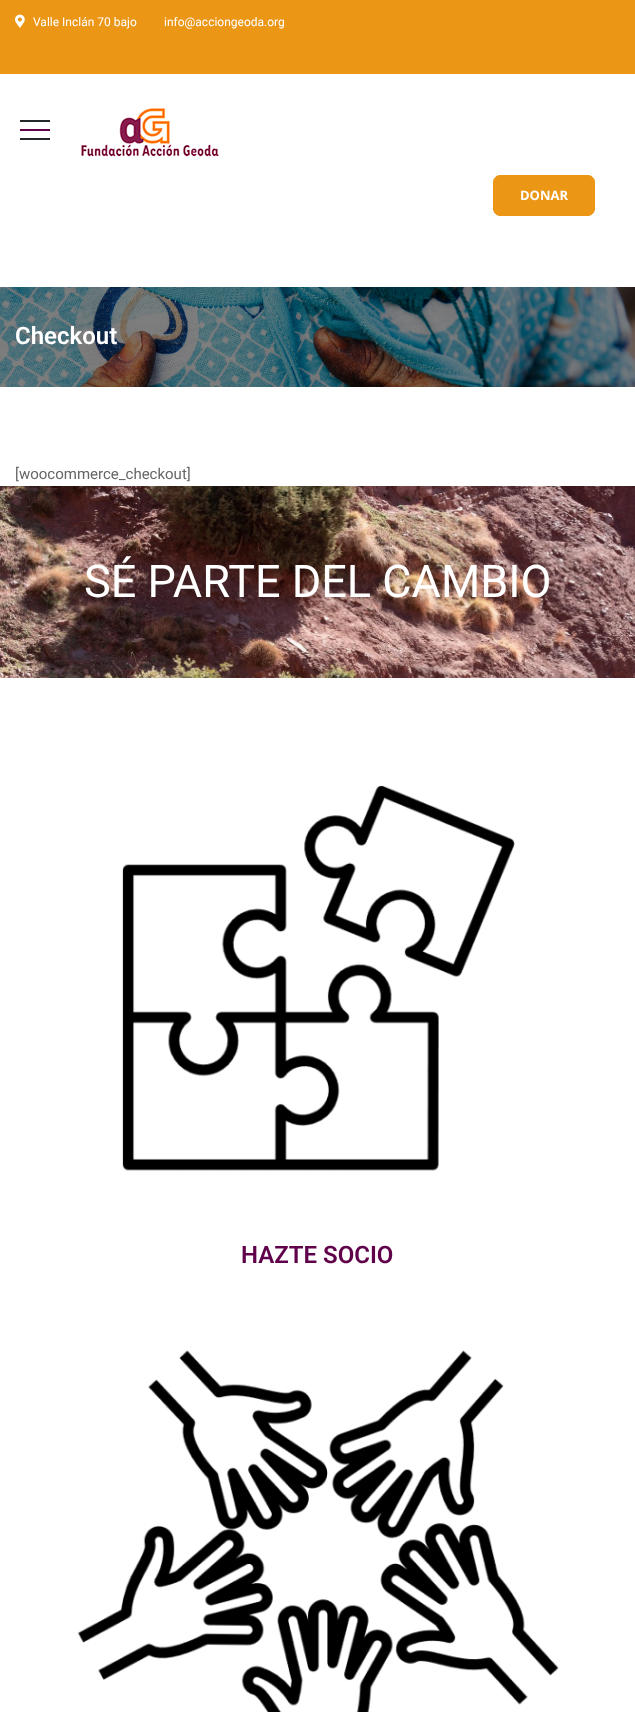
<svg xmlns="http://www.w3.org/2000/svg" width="635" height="1712">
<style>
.a{font:12px Roboto;fill:#fff}
.b{font:bold 13px Open Sans;fill:#fff}
.c{font:600 24px Roboto;fill:#fff}
.d{font:15px Roboto;fill:#666}
.e{font:45px Roboto;fill:#fff}
.f{font:600 24px Roboto;fill:#60004a}
</style>
<rect width="100%" height="100%" fill="#fff"/>
<path fill="#ec9616" d="M0 0h635v74H0z"/>
<image href="1.png" x="15" y="14" width="10" height="14"/>
<path fill="#60004a" d="M20 129h30v2H20z"/>
<path fill="#23282d" d="M20 120h30v2H20z"/>
<path fill="#23282d" d="M20 138h30v2H20z"/>
<image href="2.png" x="81" y="108" width="138" height="49"/>
<rect fill="#ec9616" stroke="#ec9616" x="493.5" y="175.5" width="101" height="40" rx="6.5"/>
<image href="3.png" x="0" y="287" width="635" height="100"/>
<image href="4.png" x="0" y="486" width="635" height="192"/>
<image href="5.png" x="122" y="785" width="393" height="386"/>
<image href="6.png" x="77" y="1350" width="482" height="362"/>
<text class="a" x="33" y="26">Valle Inclán 70 bajo</text>
<text class="a" x="164" y="26">info@acciongeoda.org</text>
<text class="b" x="520" y="200">DONAR</text>
<text class="c" x="15" y="344">Checkout</text>
<text class="d" x="15" y="479">[woocommerce_checkout]</text>
<text class="e" x="84" y="597">SÉ PARTE DEL CAMBIO</text>
<text class="f" x="241" y="1263">HAZTE SOCIO</text>
</svg>
